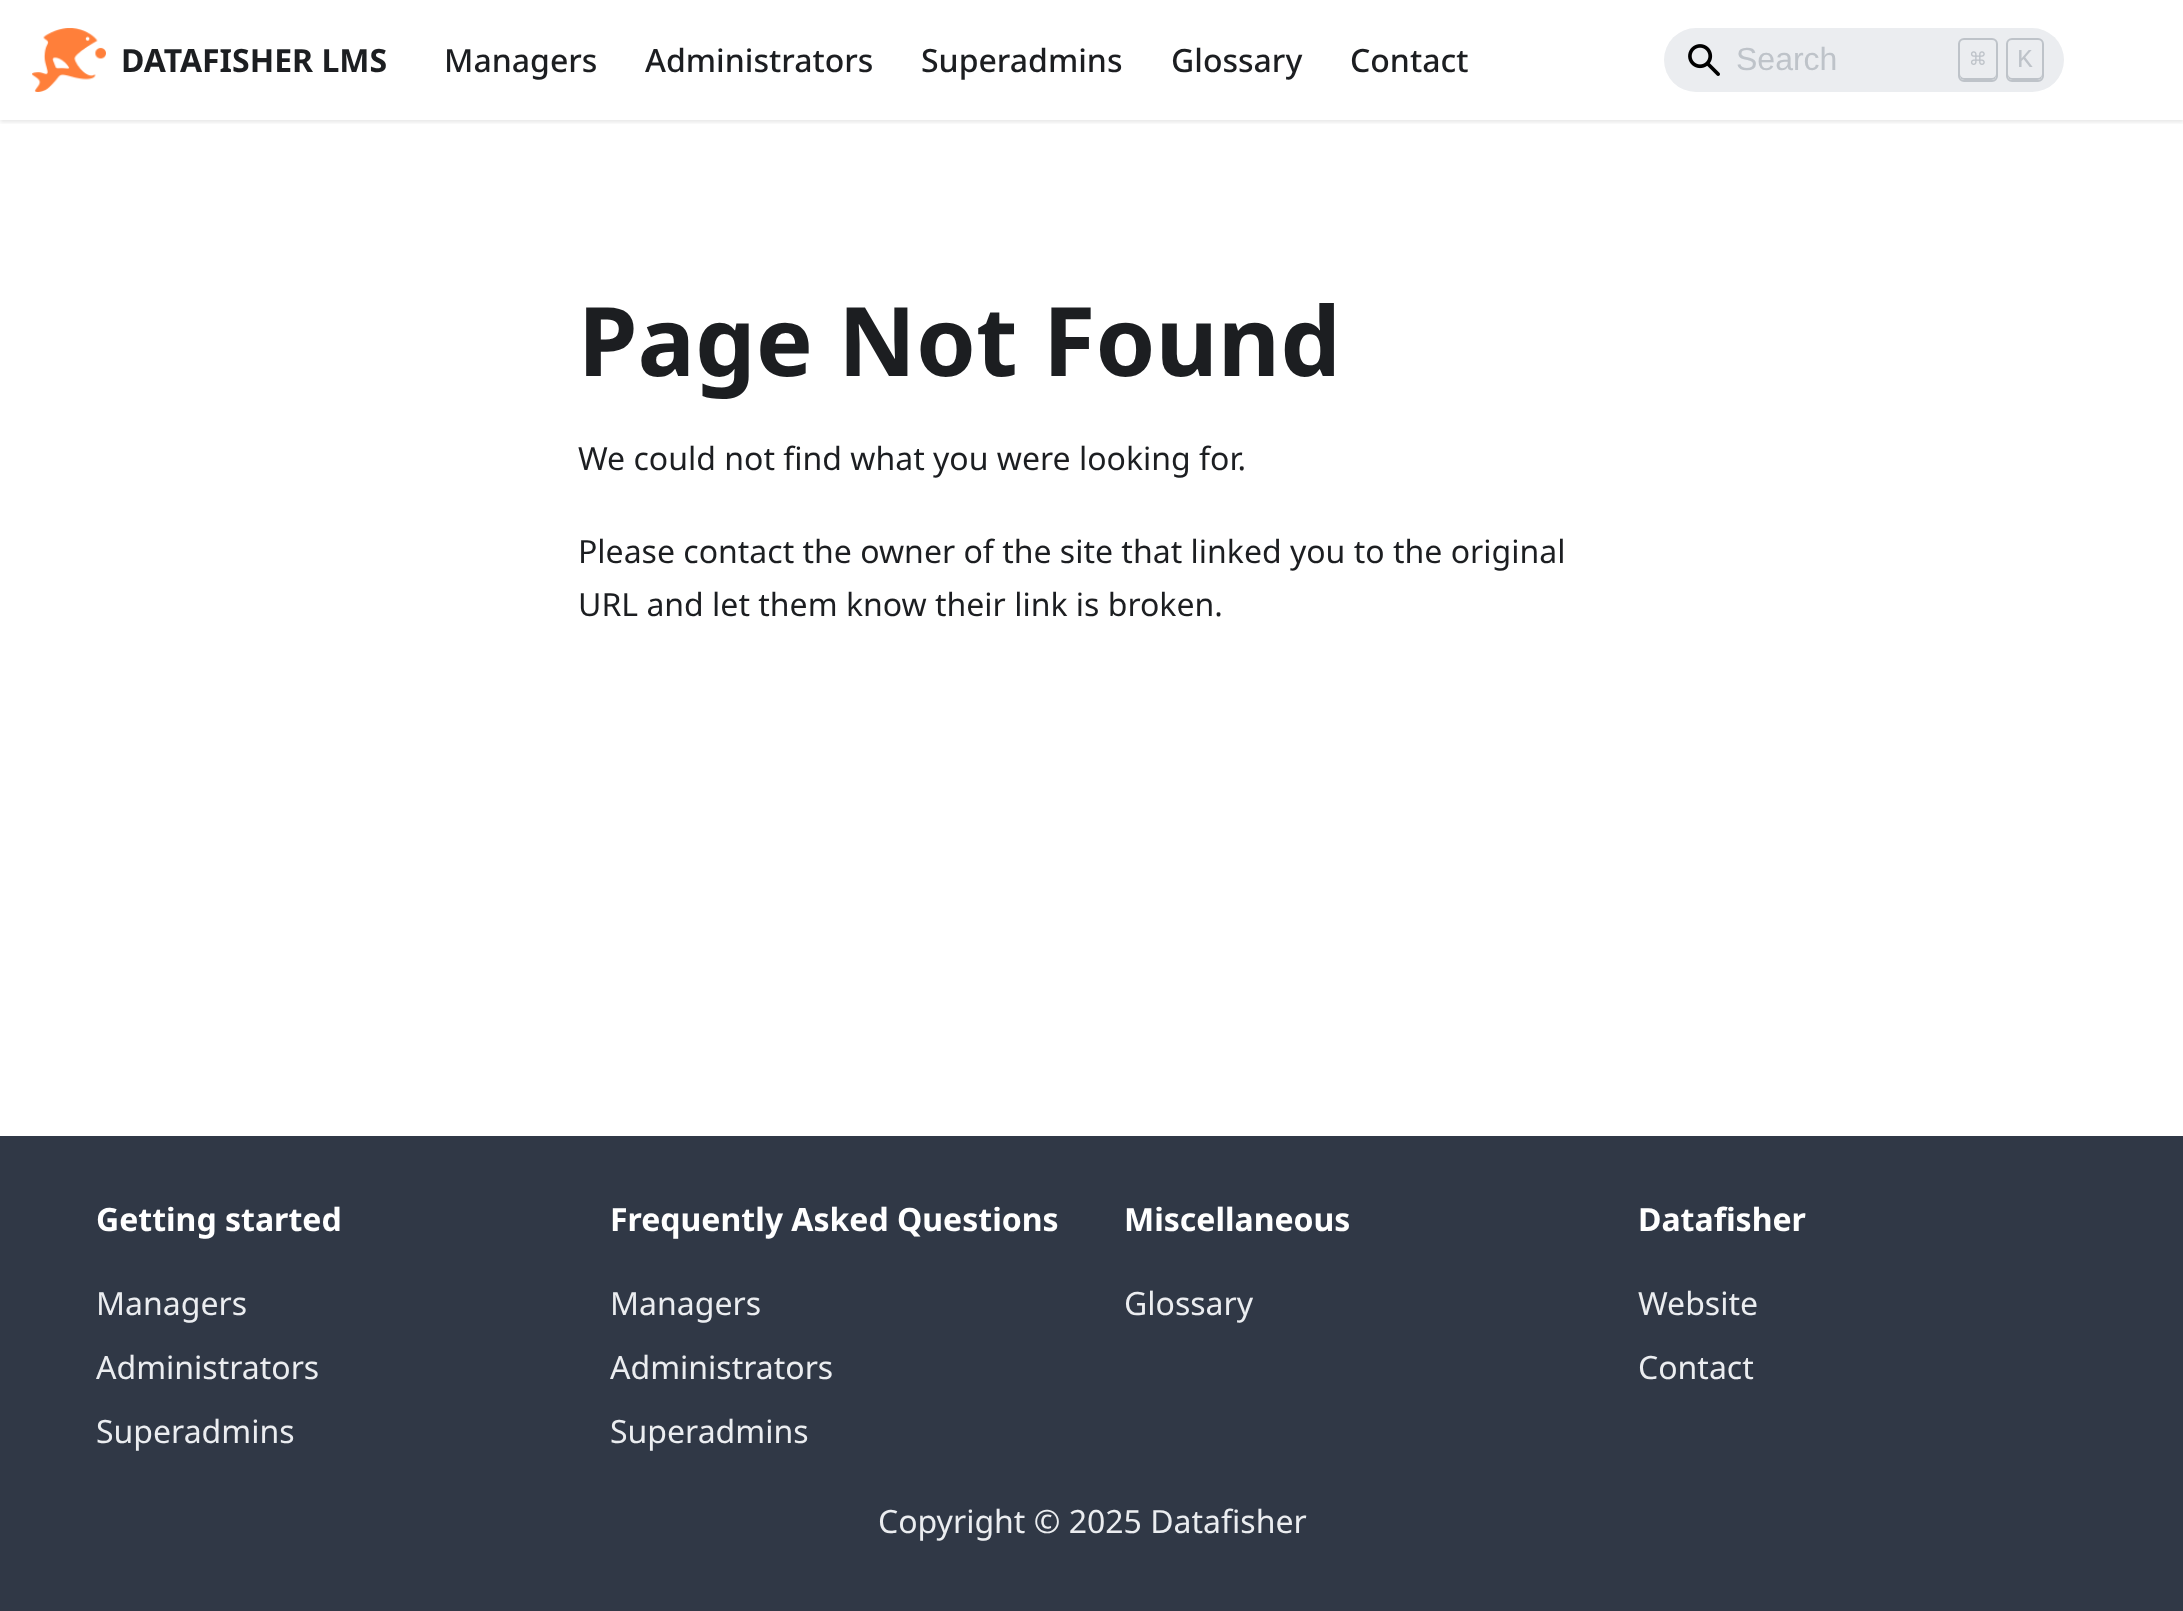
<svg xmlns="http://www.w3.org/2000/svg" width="2183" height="1611">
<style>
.a{font:bold 32px Noto Sans;fill:#1c1e21}
.b{font:500 32px Noto Sans;fill:#1c1e21}
.c{font:32px Liberation Sans;fill:#bec3c9}
.d{font:26px DejaVu Sans Mono;fill:#bec3c9}
.e{font:26px Liberation Mono;fill:#bec3c9}
.f{font:bold 96px Noto Sans;fill:#1c1e21}
.g{font:32px Noto Sans;fill:#1c1e21}
.h{font:bold 32px Noto Sans;fill:#fff}
.i{font:32px Noto Sans;fill:#ebedf0}
</style>
<defs>
<clipPath id="clip1"><path d="M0 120h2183v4H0z"/></clipPath>
</defs>
<rect width="100%" height="100%" fill="#fff"/>
<g clip-path="url(#clip1)">
<path fill="#0000001a" filter="blur(2px)" d="M0 2h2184v120H0z"/>
</g>
<image href="1.png" x="32" y="28" width="74" height="64"/>
<rect fill="#ebedf0" x="1664" y="28" width="400" height="64" rx="32"/>
<image href="2.png" x="1688" y="44" width="32" height="32"/>
<path fill="#bec3c9" d="M1960 74c0 6.5 2.5 6 8.5 6h19c6 0 8.5 .5 8.5-6c0 2-2 4-4 4h-28c-2 0-4-2-4-4z"/>
<rect fill="none" stroke="#bec3c9" stroke-width="2" x="1959" y="39" width="38" height="42" rx="5"/>
<path fill="#bec3c9" d="M2008 74c0 6.5 2.5 6 8.5 6h17c6 0 8.5 .5 8.5-6c0 2-2 4-4 4h-26c-2 0-4-2-4-4z"/>
<rect fill="none" stroke="#bec3c9" stroke-width="2" x="2007" y="39" width="36" height="42" rx="5"/>
<path fill="#303846" d="M0 1136h2183v475H0z"/>
<text class="a" x="121" y="72">DATAFISHER LMS</text>
<text class="b" x="444" y="72">Managers</text>
<text class="b" x="645" y="72">Administrators</text>
<text class="b" x="921" y="72">Superadmins</text>
<text class="b" x="1171" y="72">Glossary</text>
<text class="b" x="1350" y="72">Contact</text>
<text class="c" x="1736" y="70">Search</text>
<text class="d" x="1970" y="68">⌘</text>
<text class="e" x="2017" y="67">K</text>
<text class="f" x="578" y="376">Page Not Found</text>
<text class="g" x="578" y="470">We could not find what you were looking for.</text>
<text class="g" x="578" y="563">Please contact the owner of the site that linked you to the original</text>
<text class="g" x="578" y="616">URL and let them know their link is broken.</text>
<text class="h" x="96" y="1231">Getting started</text>
<text class="i" x="96" y="1315">Managers</text>
<text class="i" x="96" y="1379">Administrators</text>
<text class="i" x="96" y="1443">Superadmins</text>
<text class="h" x="610" y="1231">Frequently Asked Questions</text>
<text class="i" x="610" y="1315">Managers</text>
<text class="i" x="610" y="1379">Administrators</text>
<text class="i" x="610" y="1443">Superadmins</text>
<text class="h" x="1124" y="1231">Miscellaneous</text>
<text class="i" x="1124" y="1315">Glossary</text>
<text class="h" x="1638" y="1231">Datafisher</text>
<text class="i" x="1638" y="1315">Website</text>
<text class="i" x="1638" y="1379">Contact</text>
<text class="i" x="878" y="1533">Copyright © 2025 Datafisher</text>
</svg>
